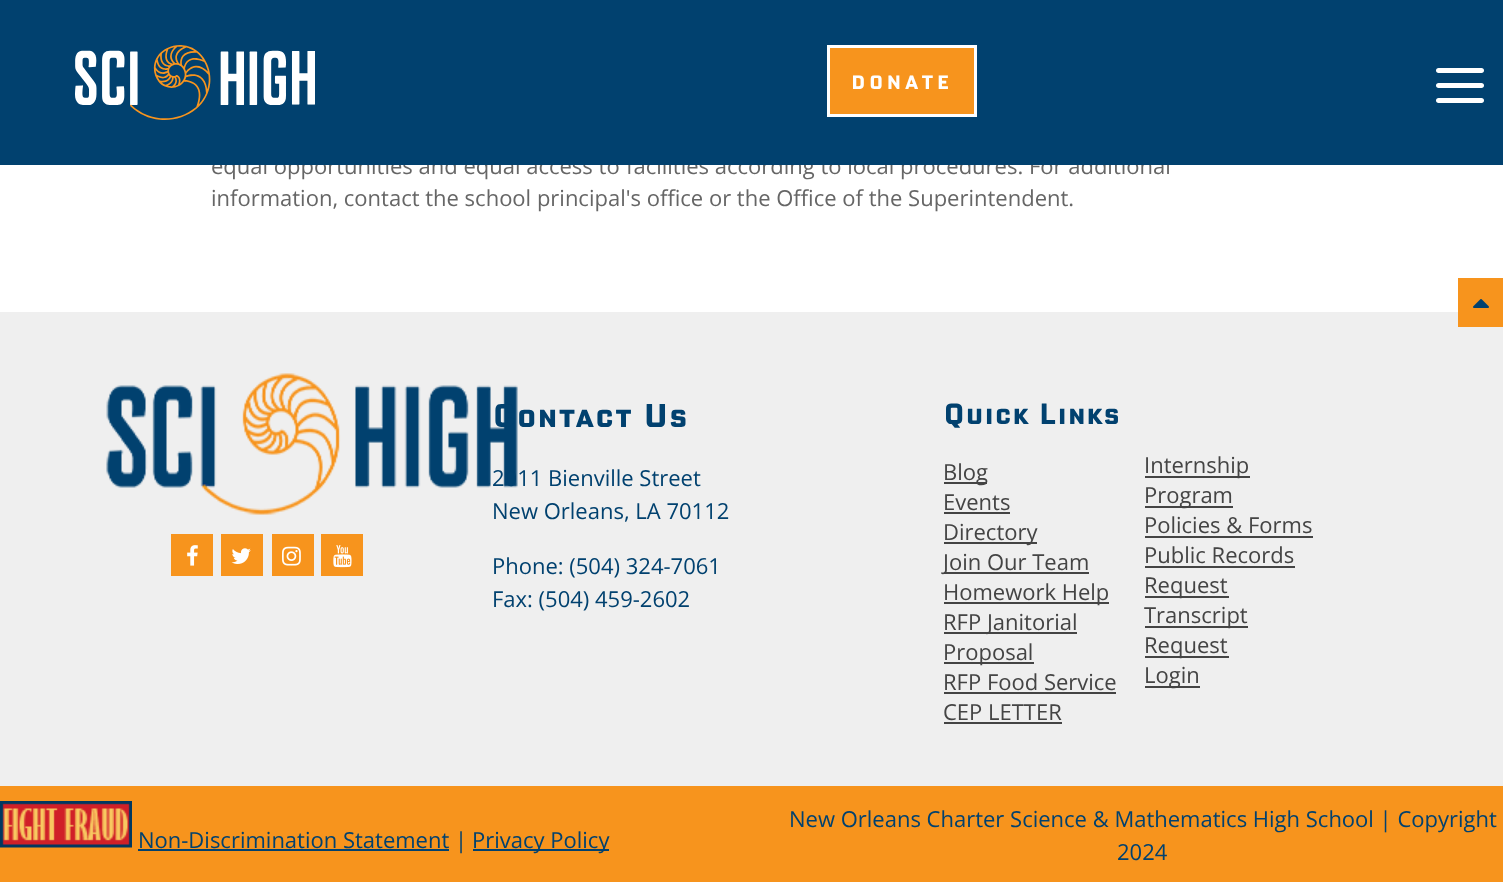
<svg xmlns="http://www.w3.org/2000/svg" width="1503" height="882">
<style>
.a{font:22px Open Sans;fill:#666}
.b{font:600 20px 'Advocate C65';letter-spacing:3px;fill:#fff}
.c{font:600 34px 'Advocate C65';fill:#01416f}
.d{font:22px Open Sans;fill:#01416f}
.e{font:600 30px 'Advocate C65';fill:#01416f}
.f{font:22px Open Sans;fill:#444}
</style>
<rect width="100%" height="100%" fill="#fff"/>
<path fill="#efefef" d="M0 312h1503v474H0z"/>
<path fill="#f7941d" d="M1458 278h45v49H1458z"/>
<image href="2.png" x="1473" y="299" width="16" height="9"/>
<image href="3.png" x="106" y="373" width="412" height="142"/>
<path fill="#f7941d" d="M171 534h42v42H171z"/>
<image href="4.png" x="187" y="545" width="11" height="21"/>
<path fill="#f7941d" d="M221 534h42v42H221z"/>
<image href="5.png" x="231" y="548" width="20" height="16"/>
<path fill="#f7941d" d="M272 534h42v42H272z"/>
<image href="6.png" x="282" y="546" width="19" height="20"/>
<path fill="#f7941d" d="M321 534h42v42H321z"/>
<image href="7.png" x="333" y="545" width="19" height="23"/>
<path fill="#444" d="M944 482h43v2H944z"/>
<path fill="#444" d="M944 512h66v2H944z"/>
<path fill="#444" d="M944 542h93v2H944z"/>
<path fill="#444" d="M944 572h145v2H944z"/>
<path fill="#444" d="M944 602h165v2H944z"/>
<path fill="#444" d="M944 632h133v2H944z"/>
<path fill="#444" d="M944 662h90v2H944z"/>
<path fill="#444" d="M944 692h172v2H944z"/>
<path fill="#444" d="M944 722h118v2H944z"/>
<path fill="#444" d="M1145 476h105v2H1145z"/>
<path fill="#444" d="M1145 506h88v2H1145z"/>
<path fill="#444" d="M1145 536h168v2H1145z"/>
<path fill="#444" d="M1145 566h150v2H1145z"/>
<path fill="#444" d="M1145 596h84v2H1145z"/>
<path fill="#444" d="M1145 626h103v2H1145z"/>
<path fill="#444" d="M1145 656h84v2H1145z"/>
<path fill="#444" d="M1145 686h55v2H1145z"/>
<path fill="#f7941d" d="M0 786h1503v96H0z"/>
<image href="8.png" x="0" y="801" width="132" height="47"/>
<path fill="#01416f" d="M138 849h311v2H138z"/>
<path fill="#01416f" d="M473 849h136v2H473z"/>
<text class="a" x="211" y="174">equal opportunities and equal access to</text>
<text class="a" x="626" y="174">facilities according to local procedures. For additional</text>
<path fill="#01416f" d="M0 0h1503v165H0z"/>
<path fill="#fff" d="M1460 98h21.5c1.5 0 2.5 1 2.5 2.5c0 1.5-1 2.5-2.5 2.5h-21.5z"/>
<path fill="#fff" d="M1438.5 98h21.5v5h-21.5c-1.5 0-2.5-1-2.5-2.5c0-1.5 1-2.5 2.5-2.5z"/>
<path fill="#fff" d="M1460 83h21.5c1.5 0 2.5 1 2.5 2.5c0 1.5-1 2.5-2.5 2.5h-21.5z"/>
<path fill="#fff" d="M1438.5 83h21.5v5h-21.5c-1.5 0-2.5-1-2.5-2.5c0-1.5 1-2.5 2.5-2.5z"/>
<path fill="#fff" d="M1460 68h21.5c1.5 0 2.5 1 2.5 2.5c0 1.5-1 2.5-2.5 2.5h-21.5z"/>
<path fill="#fff" d="M1438.5 68h21.5v5h-21.5c-1.5 0-2.5-1-2.5-2.5c0-1.5 1-2.5 2.5-2.5z"/>
<path fill="#f7941d" stroke="#fff" stroke-width="3" d="M828.5 46.5h147v69H828.5z"/>
<text class="b" x="851" y="89">DONATE</text>
<image href="1.png" x="75" y="45" width="240" height="75"/>
<text class="a" x="211" y="206">information, contact the school principal's office or the Office of the Superintendent.</text>
<text class="c" x="492" y="427">Contact Us</text>
<text class="d" x="492" y="486">2011 Bienville Street</text>
<text class="d" x="492" y="519">New Orleans, LA 70112</text>
<text class="d" x="492" y="574">Phone: (504) 324-7061</text>
<text class="d" x="492" y="607">Fax: (504) 459-2602</text>
<text class="e" x="943" y="424">Quick Links</text>
<text class="f" x="943" y="480">Blog</text>
<text class="f" x="943" y="510">Events</text>
<text class="f" x="943" y="540">Directory</text>
<text class="f" x="943" y="570">Join Our Team</text>
<text class="f" x="943" y="600">Homework Help</text>
<text class="f" x="943" y="630">RFP Janitorial</text>
<text class="f" x="943" y="660">Proposal</text>
<text class="f" x="943" y="690">RFP Food Service</text>
<text class="f" x="943" y="720">CEP LETTER</text>
<text class="f" x="1144" y="473">Internship</text>
<text class="f" x="1144" y="503">Program</text>
<text class="f" x="1144" y="533">Policies &amp; Forms</text>
<text class="f" x="1144" y="563">Public Records</text>
<text class="f" x="1144" y="593">Request</text>
<text class="f" x="1144" y="623">Transcript</text>
<text class="f" x="1144" y="653">Request</text>
<text class="f" x="1144" y="683">Login</text>
<text class="d" x="138" y="848">Non-Discrimination Statement |</text>
<text class="d" x="472" y="848">Privacy Policy</text>
<text class="d" x="789" y="827">New Orleans Charter Science &amp; Mathematics High School | Copyright</text>
<text class="d" x="1117" y="860">2024</text>
</svg>
